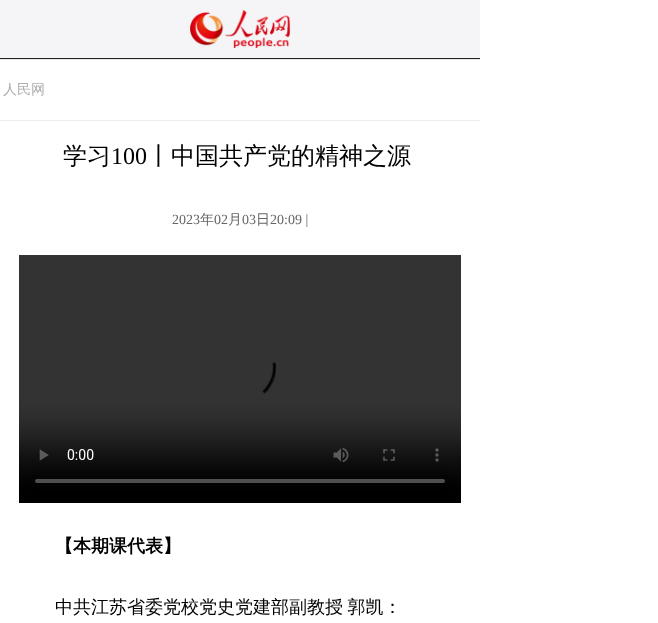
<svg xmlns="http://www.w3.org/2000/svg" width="658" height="623">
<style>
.a{font:500 14px WenQuanYi Zen Hei;fill:#adadad}
.b{font:500 24px WenQuanYi Zen Hei;fill:#000}
.c{font:24px Liberation Serif;fill:#000}
.d{font:14px Liberation Serif;fill:#666}
.e{font:500 14px WenQuanYi Zen Hei;fill:#666}
.f{font:bold 18px WenQuanYi Zen Hei;fill:#000}
.g{font:500 18px WenQuanYi Zen Hei;fill:#000}
</style>
<rect width="100%" height="100%" fill="#fff"/>
<path fill="#f5f5f7" d="M0 0h480v58H0z"/>
<path fill="#212121" d="M0 58h480v1H0z"/>
<image href="1.png" x="190" y="10" width="100" height="38"/>
<path fill="#e9e9e9" d="M0 59h480v1H0z"/>
<path fill="#ececec" d="M0 120h480v1H0z"/>
<image href="2.png" x="19" y="255" width="442" height="248"/>
<text class="a" x="3" y="94">人民网</text>
<text class="b" x="63" y="164">学习</text>
<text class="c" x="111" y="164">100</text>
<text class="b" x="147" y="164">丨中国共产党的精神之源</text>
<text class="d" x="172" y="224">2023</text>
<text class="e" x="200" y="224">年</text>
<text class="d" x="214" y="224">02</text>
<text class="e" x="228" y="224">月</text>
<text class="d" x="242" y="224">03</text>
<text class="e" x="256" y="224">日</text>
<text class="d" x="270" y="224">20:09 |</text>
<text class="f" x="55" y="552">【本期课代表】</text>
<text class="g" x="55" y="613" word-spacing="-1">中共江苏省委党校党史党建部副教授 郭凯：</text>
</svg>
